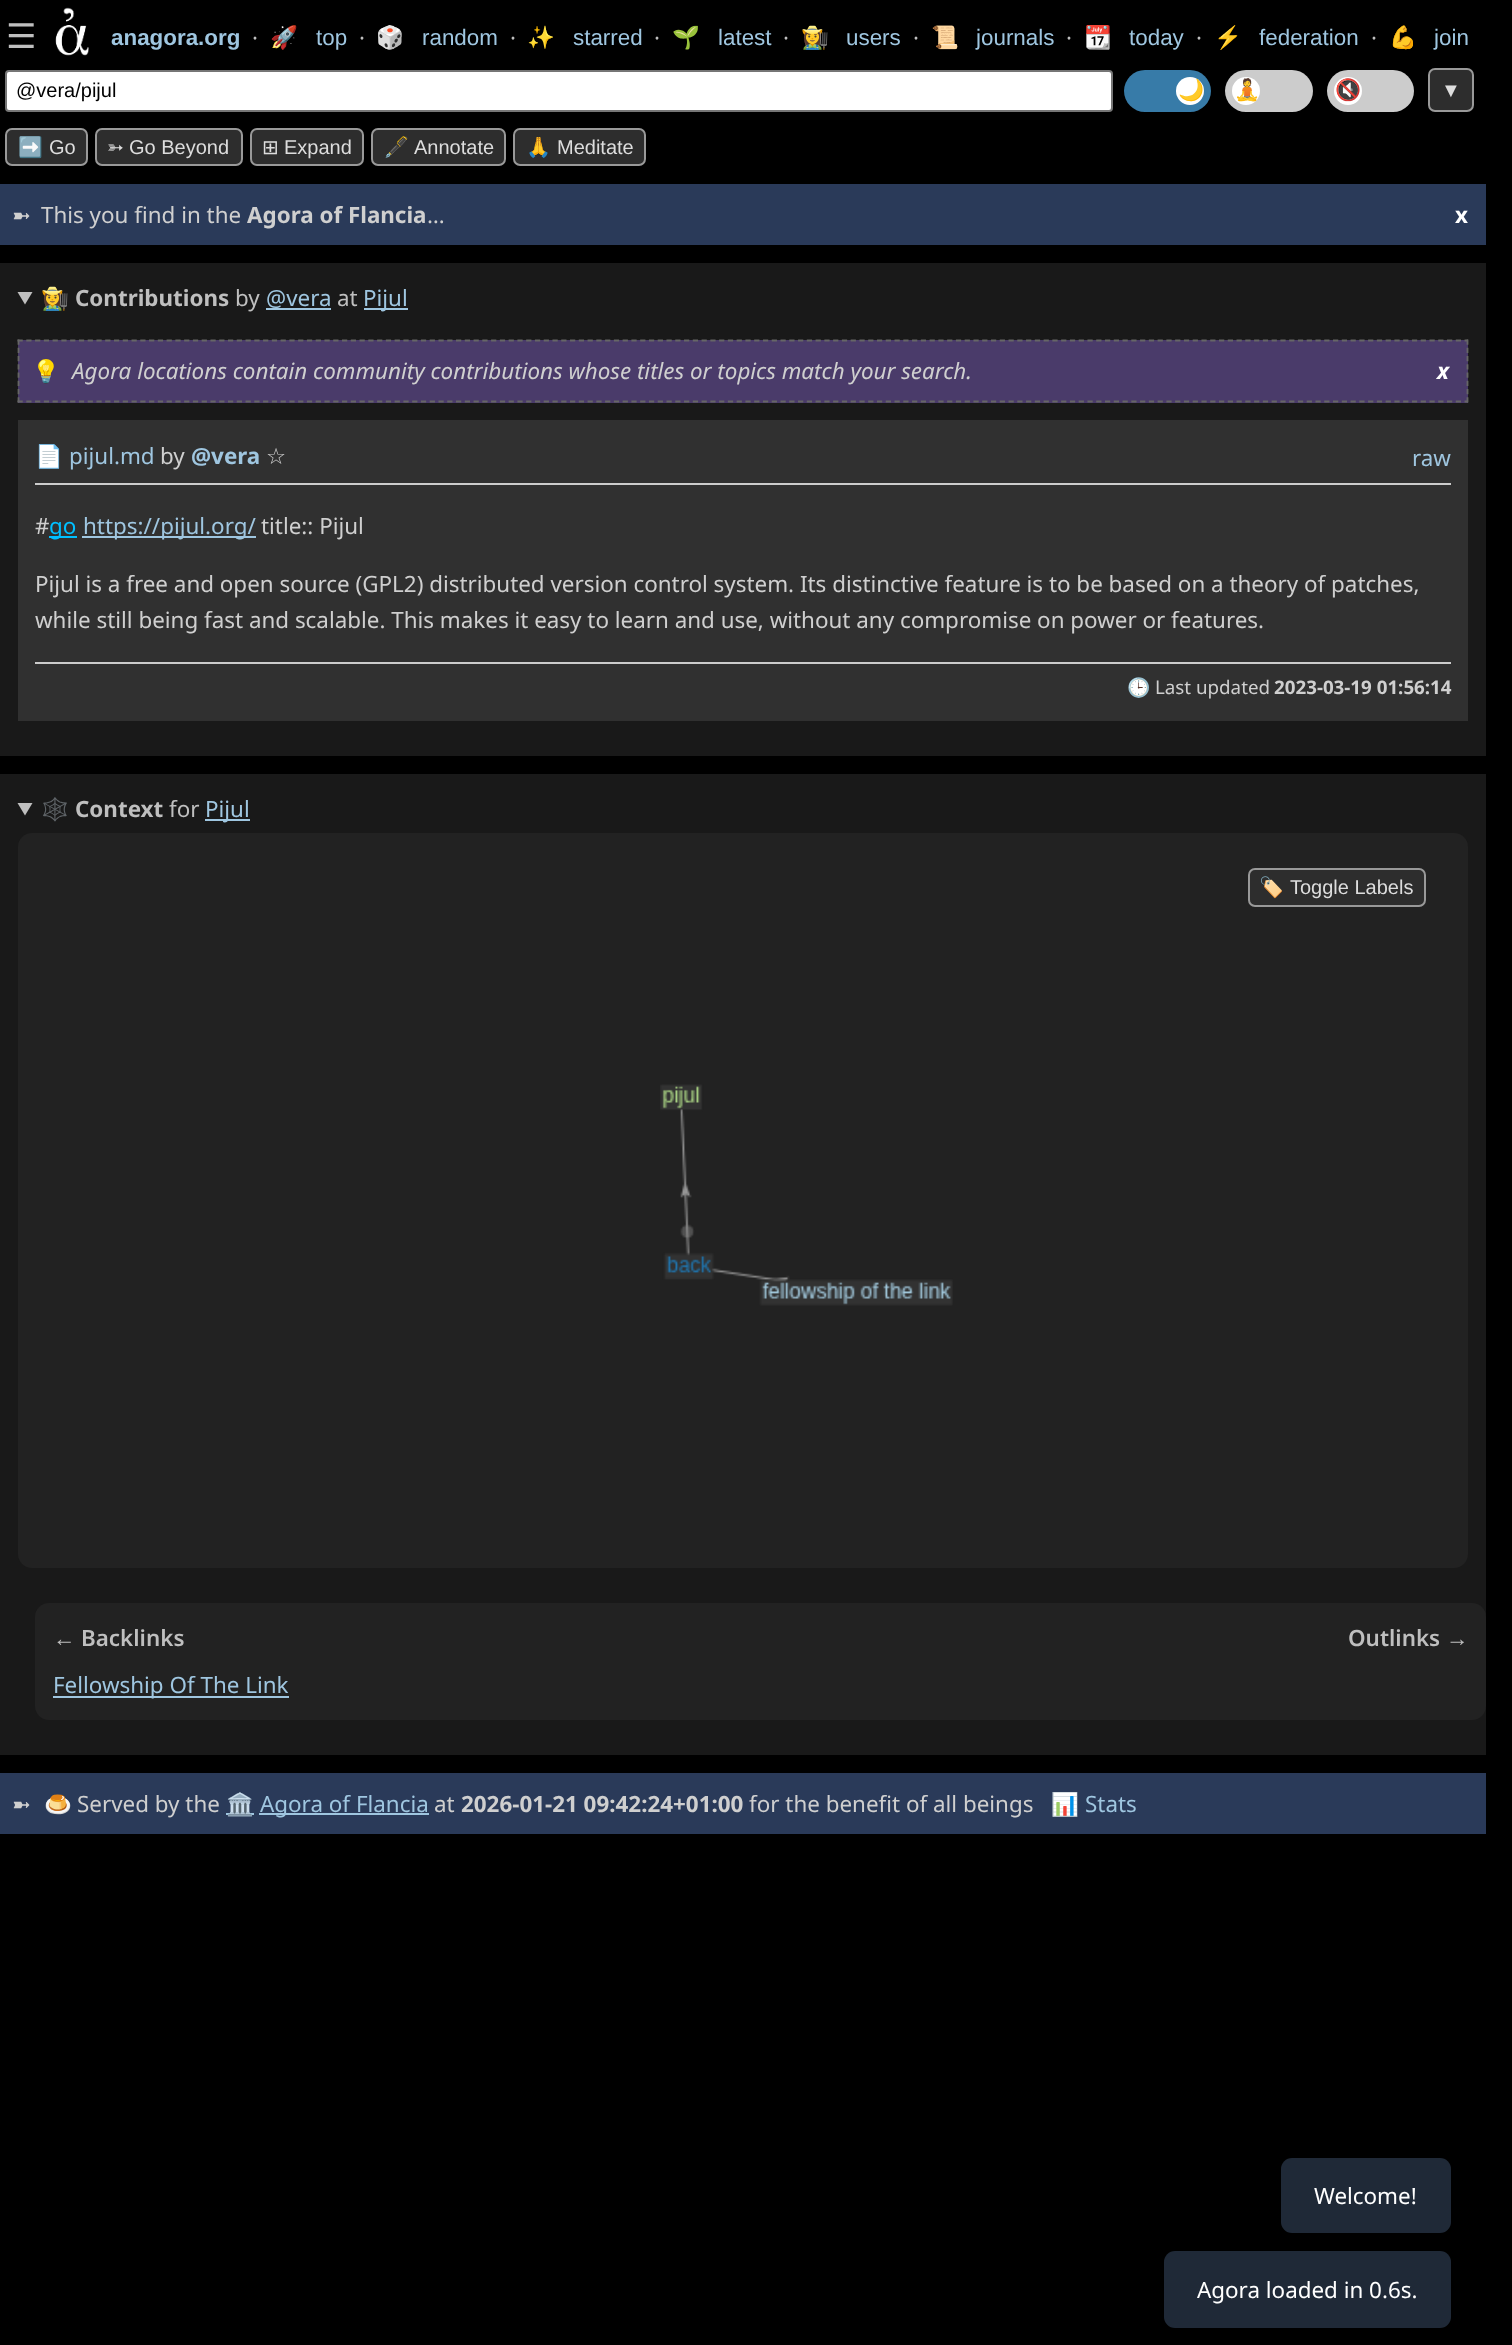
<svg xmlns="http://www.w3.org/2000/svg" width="1512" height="2345">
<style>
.a{font:34px DejaVu Sans;fill:#bfbfbf}
.b{font:bold 22.4px Liberation Sans;fill:#9fc6e0}
.c{font:22.4px Noto Sans;fill:#bfbfbf}
.d{font:22.4px Noto Color Emoji;fill:#9fc6e0}
.e{font:22.4px Liberation Sans;fill:#9fc6e0}
.f{font:20px Liberation Sans;fill:#000}
.g{font:21px Noto Color Emoji;fill:#bfbfbf}
.h{font:20px Liberation Sans;fill:#ddd}
.i{font:20px Noto Color Emoji;fill:#ddd}
.j{font:20px DejaVu Sans;fill:#ddd}
.k{font:22.4px DejaVu Sans;fill:#cfcfcf}
.l{font:22.4px Noto Sans;fill:#cfcfcf}
.m{font:bold 22.4px Noto Sans;fill:#cfcfcf}
.n{font:bold 22.4px Noto Sans;fill:#fff}
.o{font:bold 22.4px Noto Color Emoji;fill:#bfbfbf}
.p{font:bold 22.4px Noto Sans;fill:#bfbfbf}
.q{font:22.4px Noto Sans;fill:#9fc6e0}
.r{font:22.4px Noto Color Emoji;fill:#cfcfcf}
.s{font:italic 22.4px Noto Sans;fill:#cfcfcf}
.t{font:italic bold 22.4px Noto Sans;fill:#fff}
.u{font:bold 22.4px Noto Sans;fill:#9fc6e0}
.v{font:22.4px Noto Sans;fill:#00bfff}
.w{font:18.75px Noto Color Emoji;fill:#cfcfcf}
.x{font:18.75px Noto Sans;fill:#cfcfcf}
.y{font:bold 18.75px Noto Sans;fill:#cfcfcf}
.z{font:22.4px Noto Color Emoji;fill:#bfbfbf}
.a1{font:bold 22.4px Liberation Sans;fill:#bfbfbf}
.b1{font:600 22.4px Noto Sans;fill:#bfbfbf}
.c1{font:22.4px Noto Sans;fill:#fff}
</style>
<rect width="100%" height="100%" fill="#000"/>
<image href="1.png" x="55" y="7" width="34" height="49"/>
<rect fill="#fff" stroke="#767676" stroke-width="2" x="6" y="71" width="1106" height="40" rx="3"/>
<rect fill="#377ba8" x="1124" y="70" width="87" height="42" rx="21"/>
<circle fill="#fff" cx="1190" cy="91" r="14"/>
<rect fill="#ccc" x="1225" y="70" width="88" height="42" rx="21"/>
<circle fill="#fff" cx="1246" cy="91" r="14"/>
<rect fill="#ccc" x="1327" y="70" width="87" height="42" rx="21"/>
<circle fill="#fff" cx="1348" cy="91" r="14"/>
<rect fill="#2d2d2d" stroke="#999" stroke-width="2" x="1429" y="69" width="44" height="42" rx="6"/>
<rect fill="#2d2d2d" stroke="#999" stroke-width="2" x="6" y="129" width="81" height="36" rx="6"/>
<rect fill="#2d2d2d" stroke="#999" stroke-width="2" x="96" y="129" width="146" height="36" rx="6"/>
<rect fill="#2d2d2d" stroke="#999" stroke-width="2" x="251" y="129" width="112" height="36" rx="6"/>
<rect fill="#2d2d2d" stroke="#999" stroke-width="2" x="372" y="129" width="133" height="36" rx="6"/>
<rect fill="#2d2d2d" stroke="#999" stroke-width="2" x="514" y="129" width="131" height="36" rx="6"/>
<path fill="#2a3a59" d="M0 184h1486v61H0z"/>
<path fill="#191919" d="M0 263h1486v493H0z"/>
<path fill="#bfbfbf" d="M17.5 292h15l-7.5 12.5z"/>
<path fill="#9fc6e0" d="M266 308h65v2H266z"/>
<path fill="#9fc6e0" d="M364 308h44v2H364z"/>
<path fill="#4a3b6a" d="M18 340h1450v63H18z"/>
<path fill="none" stroke="#666" stroke-width="1.8" stroke-dasharray="5.25 3.52" d="M17.5 340.5h1450.5"/>
<path fill="none" stroke="#666" stroke-width="1.8" stroke-dasharray="5.25 2.99" d="M1467.5 339.5v63"/>
<path fill="none" stroke="#666" stroke-width="1.8" stroke-dasharray="5.25 3.52" d="M17.5 401.5h1450.5"/>
<path fill="none" stroke="#666" stroke-width="1.8" stroke-dasharray="5.25 2.99" d="M18.5 339.5v63"/>
<path fill="#303030" d="M18 420h1450v301H18z"/>
<path fill="#ccc" d="M35 483h1416v2H35z"/>
<path fill="#00bfff" d="M49 536h28v2H49z"/>
<path fill="#9fc6e0" d="M82 536h174v2H82z"/>
<path fill="#ccc" d="M35 662h1416v2H35z"/>
<path fill="#191919" d="M0 774h1486v981H0z"/>
<path fill="#bfbfbf" d="M17.5 803h15l-7.5 12.5z"/>
<path fill="#9fc6e0" d="M205 819h45v2H205z"/>
<rect fill="#222" x="18" y="833" width="1450" height="735" rx="14"/>
<rect fill="#2d2d2d" stroke="#999" stroke-width="2" x="1249" y="869" width="176" height="37" rx="6"/>
<image href="2.png" x="660" y="1084" width="293" height="222"/>
<rect fill="#222" x="35" y="1603" width="1451" height="117" rx="14"/>
<path fill="#9fc6e0" d="M53 1696h236v2H53z"/>
<path fill="#2a3a59" d="M0 1773h1486v61H0z"/>
<path fill="#9fc6e0" d="M226 1813h28v2H226z"/>
<path fill="#9fc6e0" d="M259 1813h170v2H259z"/>
<rect fill="#1f2937" x="1281" y="2158" width="170" height="75" rx="11"/>
<rect fill="#1f2937" x="1164" y="2251" width="287" height="77" rx="11"/>
<text class="a" x="6" y="48">☰</text>
<text class="b" x="111" y="45">anagora.org</text>
<text class="c" x="252" y="46">⸱</text>
<text class="d" x="270" y="45">🚀</text>
<text class="e" x="316" y="45">top</text>
<text class="c" x="359" y="46">⸱</text>
<text class="d" x="376" y="45">🎲️</text>
<text class="e" x="422" y="45">random</text>
<text class="c" x="510" y="46">⸱</text>
<text class="d" x="527" y="45">✨</text>
<text class="e" x="573" y="45">starred</text>
<text class="c" x="654" y="46">⸱</text>
<text class="d" x="672" y="45">🌱</text>
<text class="e" x="718" y="45">latest</text>
<text class="c" x="783" y="46">⸱</text>
<text class="d" x="801" y="45">👩‍🌾</text>
<text class="e" x="846" y="45">users</text>
<text class="c" x="913" y="46">⸱</text>
<text class="d" x="931" y="45">📜</text>
<text class="e" x="976" y="45">journals</text>
<text class="c" x="1066" y="46">⸱</text>
<text class="d" x="1084" y="45">📆</text>
<text class="e" x="1129" y="45">today</text>
<text class="c" x="1196" y="46">⸱</text>
<text class="d" x="1214" y="45">⚡</text>
<text class="e" x="1259" y="45">federation</text>
<text class="c" x="1371" y="46">⸱</text>
<text class="d" x="1389" y="45">💪</text>
<text class="e" x="1434" y="45">join</text>
<text class="f" x="16" y="97">@vera/pijul</text>
<text class="g" x="1178" y="97">🌙</text>
<text class="g" x="1234" y="97">🧘</text>
<text class="g" x="1335" y="97">🔇</text>
<text class="h" x="1441" y="97">▼</text>
<text class="i" x="18" y="154">➡️</text>
<text class="h" x="49" y="154">Go</text>
<text class="j" x="107" y="154">➳</text>
<text class="h" x="129" y="154">Go Beyond</text>
<text class="j" x="262" y="154">⊞</text>
<text class="h" x="284" y="154">Expand</text>
<text class="i" x="384" y="154">🖋️</text>
<text class="h" x="414" y="154">Annotate</text>
<text class="i" x="526" y="154">🙏</text>
<text class="h" x="557" y="154">Meditate</text>
<text class="k" x="12" y="223">➼</text>
<text class="l" x="41" y="223">This you find in the</text>
<text class="m" x="247" y="223">Agora of Flancia</text>
<text class="l" x="427" y="223">…</text>
<text class="n" x="1455" y="223">x</text>
<text class="o" x="41" y="306">👩‍🌾</text>
<text class="p" x="75" y="306">Contributions</text>
<text class="c" x="235" y="306">by</text>
<text class="q" x="266" y="306">@vera</text>
<text class="c" x="337" y="306">at</text>
<text class="q" x="363" y="306">Pijul</text>
<text class="r" x="32" y="379">💡</text>
<text class="s" x="72" y="379">Agora locations contain community contributions whose titles or topics match your search.</text>
<text class="t" x="1437" y="379">x</text>
<text class="d" x="35" y="464">📄</text>
<text class="q" x="69" y="464">pijul.md</text>
<text class="l" x="160" y="464">by</text>
<text class="u" x="191" y="464">@vera</text>
<text class="k" x="266" y="464">☆</text>
<text class="q" x="1412" y="466">raw</text>
<text class="l" x="35" y="534">#</text>
<text class="v" x="49" y="534">go</text>
<text class="q" x="83" y="534">https://pijul.org/</text>
<text class="l" x="261" y="534">title:: Pijul</text>
<text class="l" x="35" y="592">Pijul is a free and open source (GPL2) distributed version control system. Its distinctive feature is to be based on a theory of patches,</text>
<text class="l" x="35" y="628">while still being fast and scalable. This makes it easy to learn and use, without any compromise on power or features.</text>
<text class="w" x="1127" y="694">🕒</text>
<text class="x" x="1155" y="694">Last updated</text>
<text class="y" x="1274" y="694">2023-03-19 01:56:14</text>
<text class="z" x="41" y="817">🕸️</text>
<text class="p" x="75" y="817">Context</text>
<text class="c" x="169" y="817">for</text>
<text class="q" x="205" y="817">Pijul</text>
<text class="i" x="1259" y="894">🏷️</text>
<text class="h" x="1290" y="894">Toggle Labels</text>
<text class="a1" x="53" y="1646">←</text>
<text class="b1" x="81" y="1646">Backlinks</text>
<text class="q" x="53" y="1693">Fellowship Of The Link</text>
<text class="b1" x="1348" y="1646">Outlinks</text>
<text class="a1" x="1446" y="1646">→</text>
<text class="k" x="12" y="1812">➼</text>
<text class="r" x="44" y="1812">🍮</text>
<text class="l" x="77" y="1812">Served by the</text>
<text class="d" x="226" y="1812">🏛️</text>
<text class="q" x="260" y="1812">Agora of Flancia</text>
<text class="l" x="434" y="1812">at</text>
<text class="m" x="461" y="1812">2026-01-21 09:42:24+01:00</text>
<text class="l" x="749" y="1812">for the benefit of all beings</text>
<text class="d" x="1051" y="1812">📊</text>
<text class="q" x="1085" y="1812">Stats</text>
<text class="c1" x="1314" y="2204">Welcome!</text>
<text class="c1" x="1197" y="2298">Agora loaded in 0.6s.</text>
</svg>
